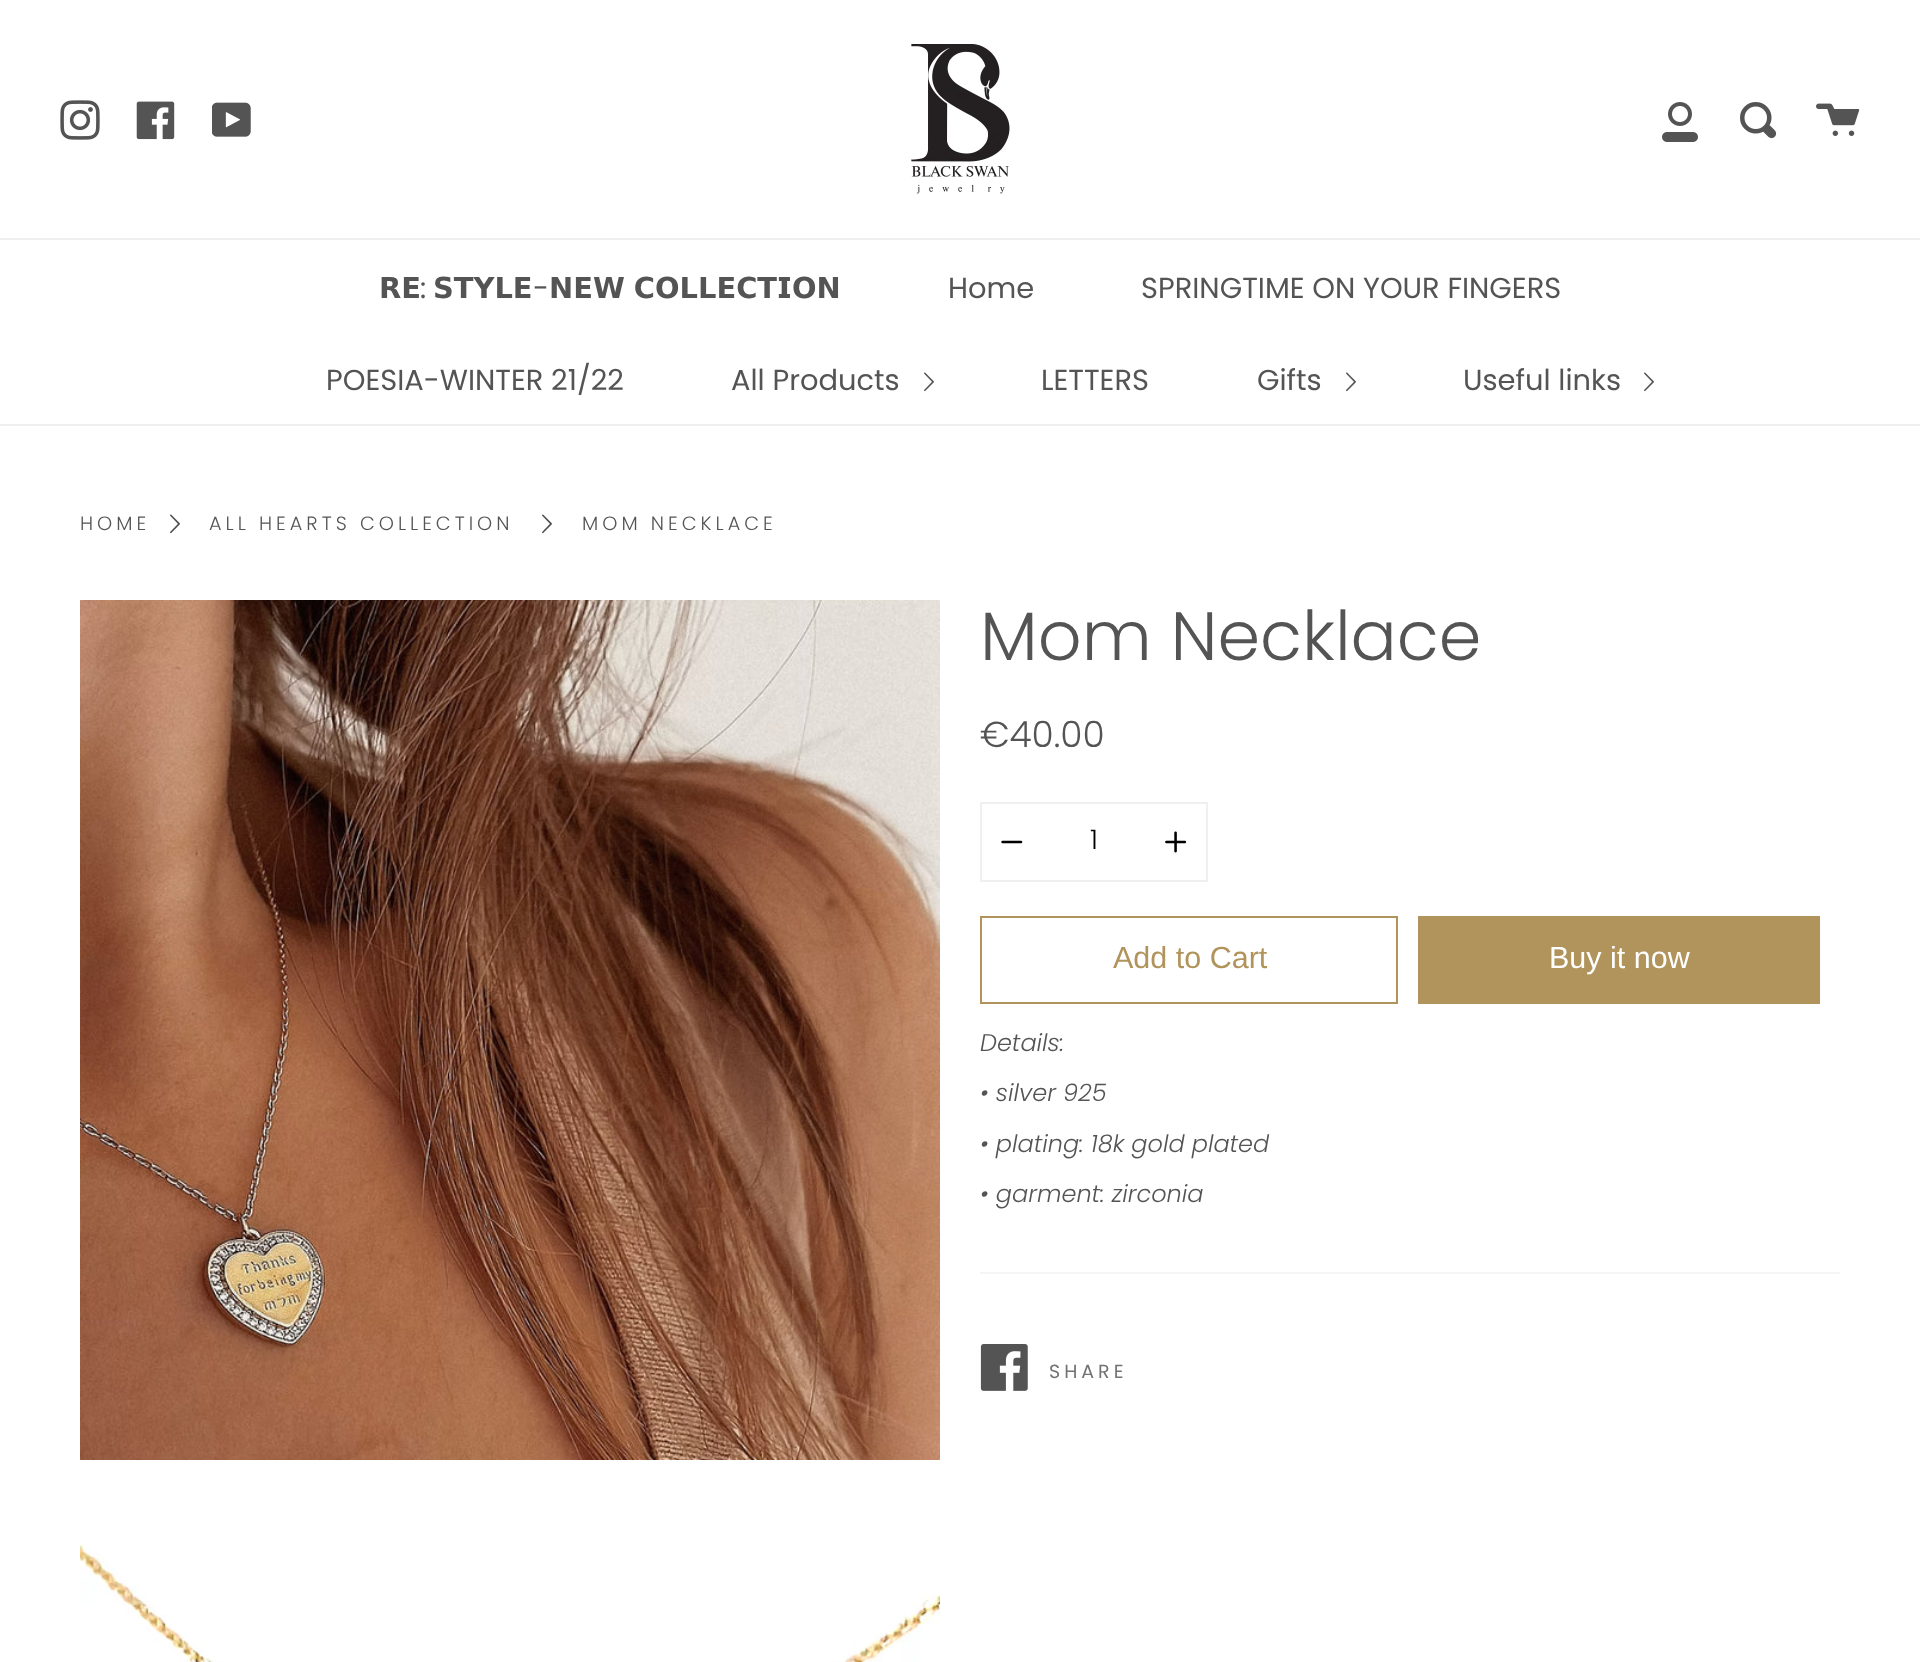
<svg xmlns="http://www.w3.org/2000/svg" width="1920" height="1662">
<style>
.a{font:bold 28.9px DejaVu Sans;fill:#545454}
.b{font:28.9px Poppins;fill:#545454}
.c{font:300 19.25px Poppins;letter-spacing:4px;fill:#545454}
.d{font:300 68.5px Poppins;fill:#545454}
.e{font:300 36px Poppins;fill:#545454}
.f{font:300 27px Poppins;fill:#000}
.g{font:30.5px Liberation Sans;fill:#b1945c}
.h{font:30.5px Liberation Sans;fill:#fff}
.i{font:italic 300 24px Poppins;fill:#545454}
.j{font:19px Poppins;letter-spacing:4px;fill:#737373}
</style>
<rect width="100%" height="100%" fill="#fff"/>
<image href="1.png" x="60" y="100" width="40" height="40"/>
<image href="2.png" x="136" y="101" width="39" height="39"/>
<image href="3.png" x="212" y="102" width="39" height="35"/>
<image href="4.png" x="911" y="44" width="99" height="150"/>
<image href="5.png" x="1662" y="102" width="36" height="40"/>
<image href="6.png" x="1740" y="102" width="37" height="37"/>
<image href="7.png" x="1816" y="103" width="44" height="33"/>
<path fill="#f0f0f0" d="M0 238h1920v2H0z"/>
<path fill="#f0f0f0" d="M0 424h1920v2H0z"/>
<image href="8.png" x="924" y="372" width="10" height="20"/>
<image href="8.png" x="1346" y="372" width="10" height="20"/>
<image href="8.png" x="1644" y="372" width="10" height="20"/>
<image href="9.png" x="170" y="514" width="10" height="20"/>
<image href="9.png" x="542" y="514" width="10" height="20"/>
<image href="10.png" x="80" y="600" width="860" height="860"/>
<image href="11.png" x="80" y="1544" width="860" height="118"/>
<path fill="none" stroke="#f0f0f0" stroke-width="2" d="M981 803h226v78H981z"/>
<image href="12.png" x="1001" y="840" width="22" height="4"/>
<image href="13.png" x="1165" y="831" width="22" height="22"/>
<path fill="none" stroke="#b1945c" stroke-width="2" d="M981 917h416v86H981z"/>
<path fill="#b1945c" d="M1418 916h402v88H1418z"/>
<path fill="#f5f5f5" d="M980 1272h860v2H980z"/>
<image href="14.png" x="980" y="1344" width="48" height="47"/>
<text class="a" x="379" y="298">𝗥𝗘</text>
<text class="b" x="420" y="298">:</text>
<text class="a" x="433" y="298">𝗦𝗧𝗬𝗟𝗘</text>
<text class="b" x="533" y="298">-</text>
<text class="a" x="549" y="298" word-spacing="-1">𝗡𝗘𝗪 𝗖𝗢𝗟𝗟𝗘𝗖𝗧𝗜𝗢𝗡</text>
<text class="b" x="948" y="298">Home</text>
<text class="b" x="1141" y="298">SPRINGTIME ON YOUR FINGERS</text>
<text class="b" x="326" y="390">POESIA-WINTER 21/22</text>
<text class="b" x="731" y="390">All Products</text>
<text class="b" x="1041" y="390">LETTERS</text>
<text class="b" x="1257" y="390">Gifts</text>
<text class="b" x="1463" y="390">Useful links</text>
<text class="c" x="80" y="530">HOME</text>
<text class="c" x="209" y="530">ALL HEARTS COLLECTION</text>
<text class="c" x="582" y="530">MOM NECKLACE</text>
<text class="d" x="980" y="660">Mom Necklace</text>
<text class="e" x="980" y="747">€40.00</text>
<text class="f" x="1090" y="849">1</text>
<text class="g" x="1113" y="968">Add to Cart</text>
<text class="h" x="1549" y="968">Buy it now</text>
<text class="i" x="980" y="1051">Details:</text>
<text class="i" x="980" y="1101">• silver 925</text>
<text class="i" x="980" y="1152">• plating: 18k gold plated</text>
<text class="i" x="980" y="1202">• garment: zirconia</text>
<text class="j" x="1049" y="1378">SHARE</text>
</svg>
